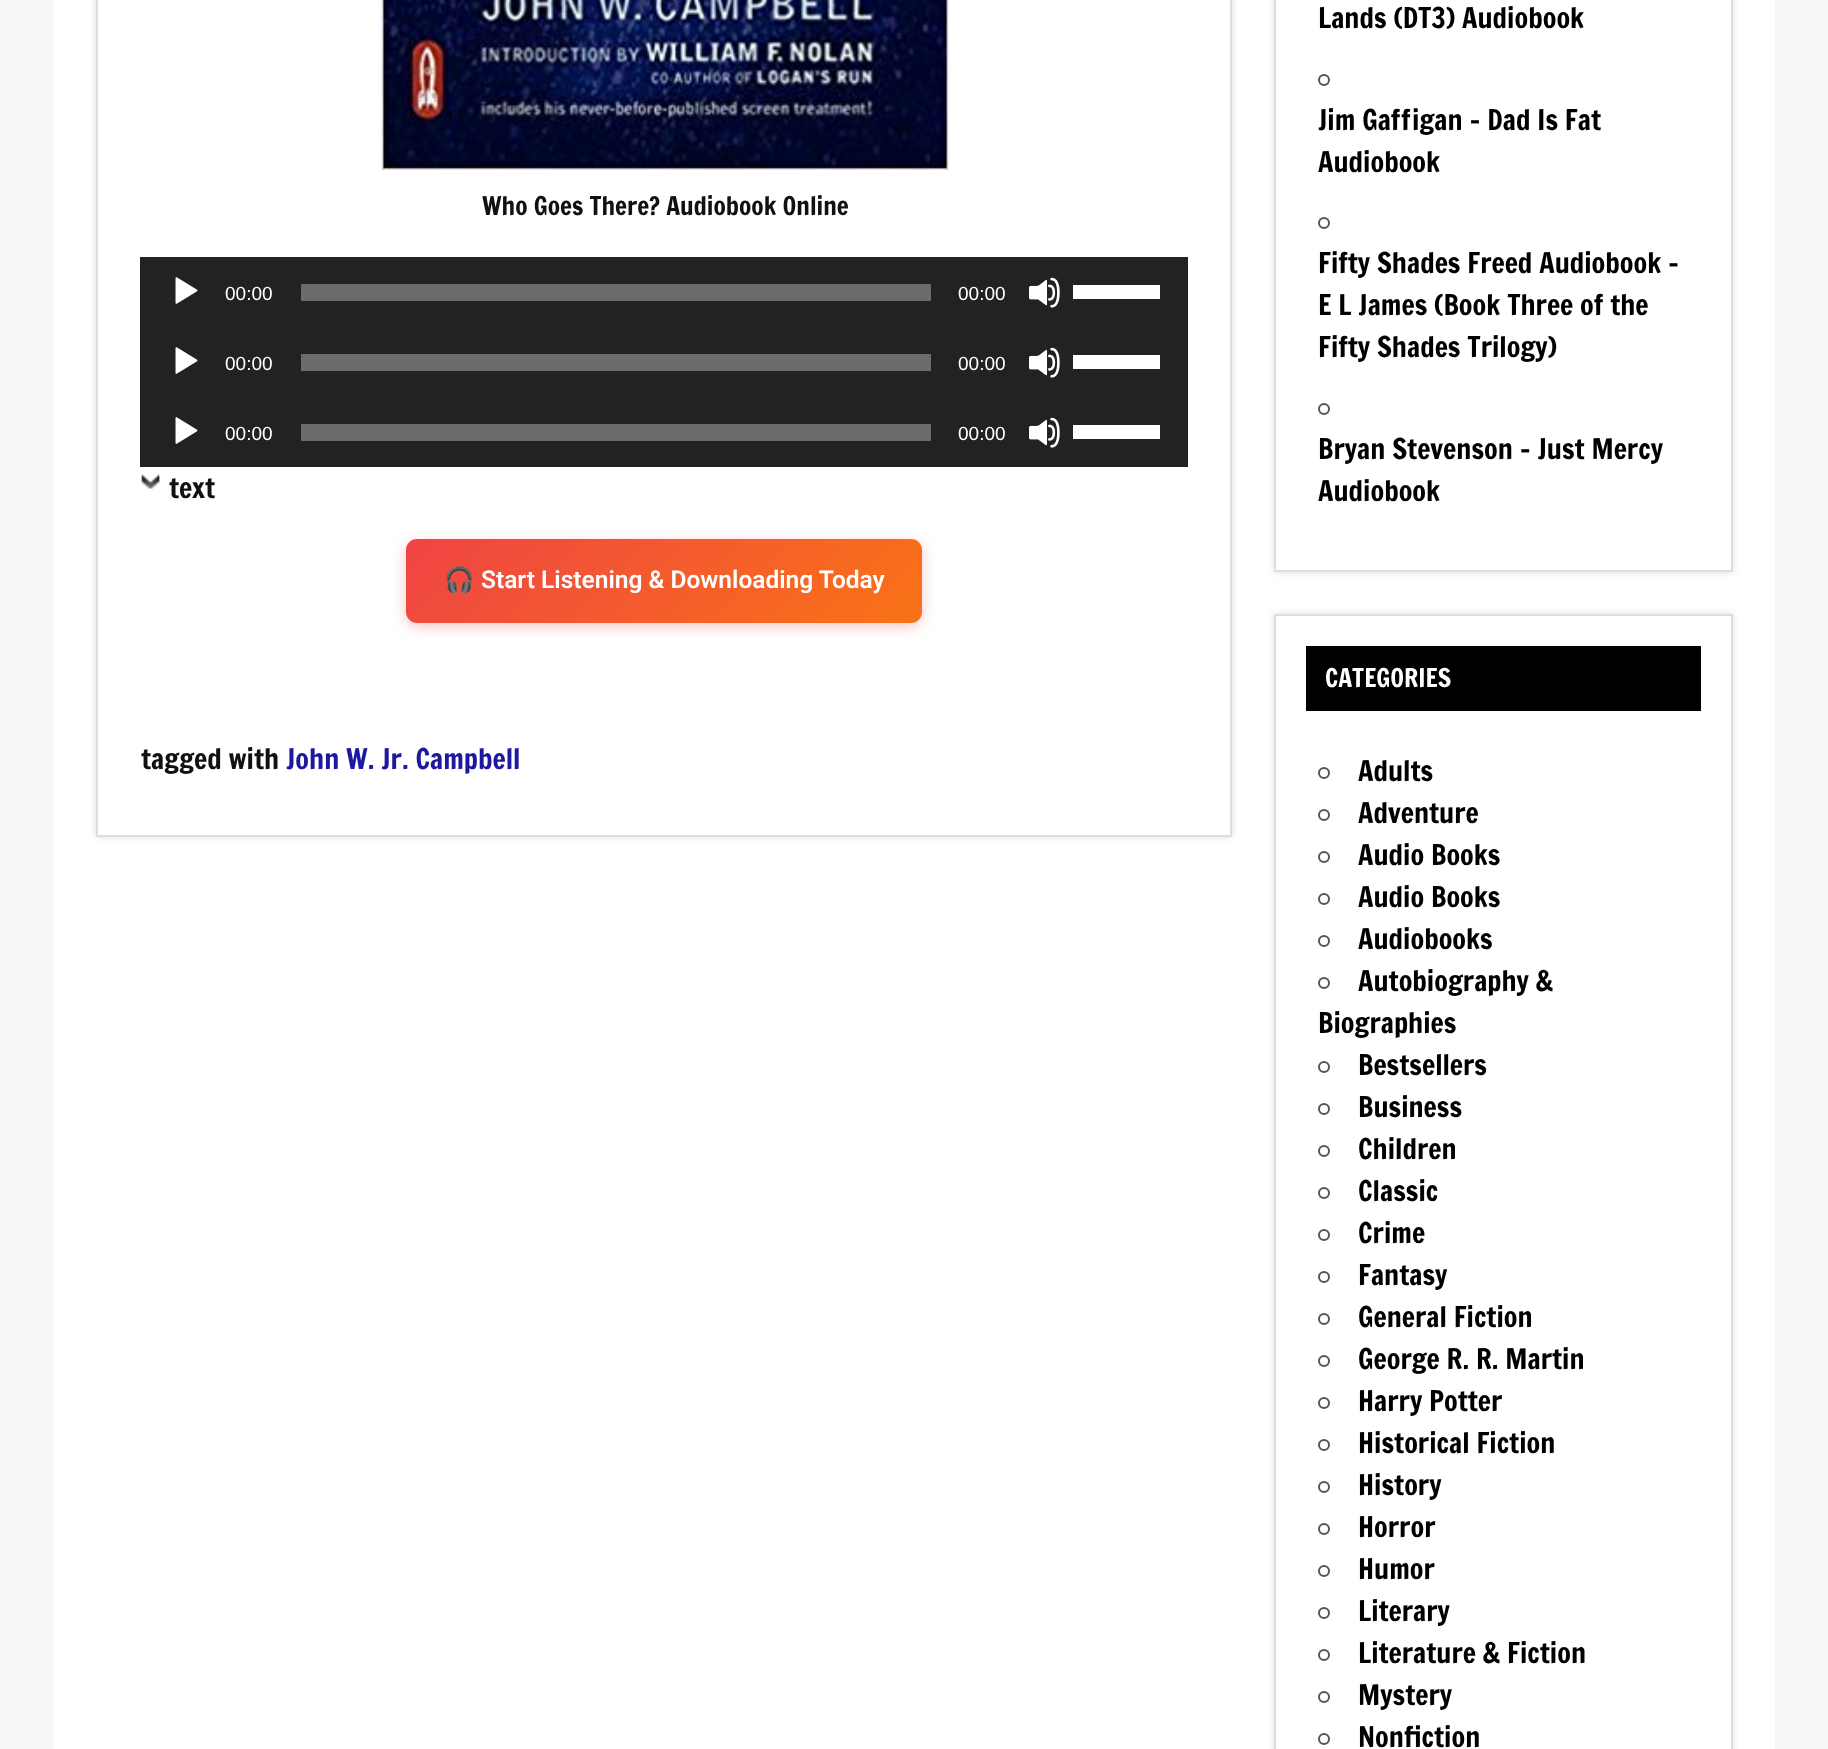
<svg xmlns="http://www.w3.org/2000/svg" width="1828" height="1749">
<style>
.a{font:25.25px Francois One;fill:#111}
.b{font:19px Liberation Sans;fill:#fff}
.c{font:28px Francois One;fill:#111}
.d{font:bold 24.5px Noto Color Emoji;fill:#fff}
.e{font:600 24.5px Roboto;fill:#fff}
.f{font:28px Francois One;fill:#1c18a0}
.g{font:28px Francois One;fill:#000}
.h{font:25.25px Francois One;fill:#fff}
</style>
<defs>
<linearGradient id="g1" gradientUnits="userSpaceOnUse" x1="514" y1="431" x2="814" y2="731"><stop offset="0" stop-color="#ef4444"/><stop offset="1" stop-color="#f97316"/></linearGradient>
</defs>
<rect width="100%" height="100%" fill="#f7f7f7"/>
<path fill="#fff" d="M54 0h1721v1749H54z"/>
<path fill="#ddd" filter="blur(3.5px)" d="M96 -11h1136v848H96z"/>
<path fill="#fff" stroke="#ddd" stroke-width="2" d="M97 -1h1134v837H97z"/>
<image href="1.png" x="381" y="0" width="568" height="170"/>
<path fill="#222" d="M140 257h1048v210H140z"/>
<image href="2.png" x="175" y="277" width="23" height="27"/>
<path fill="#6b6b6b" d="M301 284h630v17H301z"/>
<image href="3.png" x="1029" y="277" width="31" height="31"/>
<path fill="#fff" d="M1073 285h87v14H1073z"/>
<image href="2.png" x="175" y="347" width="23" height="27"/>
<path fill="#6b6b6b" d="M301 354h630v17H301z"/>
<image href="3.png" x="1029" y="347" width="31" height="31"/>
<path fill="#fff" d="M1073 355h87v14H1073z"/>
<image href="2.png" x="175" y="417" width="23" height="27"/>
<path fill="#6b6b6b" d="M301 424h630v17H301z"/>
<image href="3.png" x="1029" y="417" width="31" height="31"/>
<path fill="#fff" d="M1073 425h87v14H1073z"/>
<image href="4.png" x="141" y="474" width="19" height="15"/>
<rect fill="#ef44444d" filter="blur(7px)" x="406" y="543" width="516" height="84" rx="11"/>
<rect fill="url(#g1)" x="406" y="539" width="516" height="84" rx="11"/>
<path fill="#ddd" filter="blur(3.5px)" d="M1274 -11h459v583H1274z"/>
<path fill="#fff" stroke="#ddd" stroke-width="2" d="M1275 -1h457v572H1275z"/>
<circle fill="none" stroke="#555" stroke-width="2" cx="1324" cy="80" r="5"/>
<circle fill="none" stroke="#555" stroke-width="2" cx="1324" cy="223" r="5"/>
<circle fill="none" stroke="#555" stroke-width="2" cx="1324" cy="409" r="5"/>
<path fill="#ddd" filter="blur(3.5px)" d="M1274 614h459v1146H1274z"/>
<path fill="#fff" stroke="#ddd" stroke-width="2" d="M1275 615h457v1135H1275z"/>
<path fill="#000" d="M1306 646h395v65H1306z"/>
<circle fill="none" stroke="#555" stroke-width="2" cx="1324" cy="773" r="5"/>
<circle fill="none" stroke="#555" stroke-width="2" cx="1324" cy="815" r="5"/>
<circle fill="none" stroke="#555" stroke-width="2" cx="1324" cy="857" r="5"/>
<circle fill="none" stroke="#555" stroke-width="2" cx="1324" cy="899" r="5"/>
<circle fill="none" stroke="#555" stroke-width="2" cx="1324" cy="941" r="5"/>
<circle fill="none" stroke="#555" stroke-width="2" cx="1324" cy="983" r="5"/>
<circle fill="none" stroke="#555" stroke-width="2" cx="1324" cy="1067" r="5"/>
<circle fill="none" stroke="#555" stroke-width="2" cx="1324" cy="1109" r="5"/>
<circle fill="none" stroke="#555" stroke-width="2" cx="1324" cy="1151" r="5"/>
<circle fill="none" stroke="#555" stroke-width="2" cx="1324" cy="1193" r="5"/>
<circle fill="none" stroke="#555" stroke-width="2" cx="1324" cy="1235" r="5"/>
<circle fill="none" stroke="#555" stroke-width="2" cx="1324" cy="1277" r="5"/>
<circle fill="none" stroke="#555" stroke-width="2" cx="1324" cy="1319" r="5"/>
<circle fill="none" stroke="#555" stroke-width="2" cx="1324" cy="1361" r="5"/>
<circle fill="none" stroke="#555" stroke-width="2" cx="1324" cy="1403" r="5"/>
<circle fill="none" stroke="#555" stroke-width="2" cx="1324" cy="1445" r="5"/>
<circle fill="none" stroke="#555" stroke-width="2" cx="1324" cy="1487" r="5"/>
<circle fill="none" stroke="#555" stroke-width="2" cx="1324" cy="1529" r="5"/>
<circle fill="none" stroke="#555" stroke-width="2" cx="1324" cy="1571" r="5"/>
<circle fill="none" stroke="#555" stroke-width="2" cx="1324" cy="1613" r="5"/>
<circle fill="none" stroke="#555" stroke-width="2" cx="1324" cy="1655" r="5"/>
<circle fill="none" stroke="#555" stroke-width="2" cx="1324" cy="1697" r="5"/>
<circle fill="none" stroke="#555" stroke-width="2" cx="1324" cy="1739" r="5"/>
<text class="a" x="482" y="215">Who Goes There? Audiobook Online</text>
<text class="b" x="225" y="300">00:00</text>
<text class="b" x="958" y="300">00:00</text>
<text class="b" x="225" y="370">00:00</text>
<text class="b" x="958" y="370">00:00</text>
<text class="b" x="225" y="440">00:00</text>
<text class="b" x="958" y="440">00:00</text>
<text class="c" x="169" y="498">text</text>
<text class="d" x="444" y="588">🎧</text>
<text class="e" x="481" y="588">Start Listening &amp; Downloading Today</text>
<text class="c" x="141" y="769">tagged with</text>
<text class="f" x="286" y="769">John W. Jr. Campbell</text>
<text class="g" x="1318" y="28">Lands (DT3) Audiobook</text>
<text class="g" x="1318" y="130">Jim Gaffigan – Dad Is Fat</text>
<text class="g" x="1318" y="172">Audiobook</text>
<text class="g" x="1318" y="273">Fifty Shades Freed Audiobook –</text>
<text class="g" x="1318" y="315">E L James (Book Three of the</text>
<text class="g" x="1318" y="357">Fifty Shades Trilogy)</text>
<text class="g" x="1318" y="459">Bryan Stevenson – Just Mercy</text>
<text class="g" x="1318" y="501">Audiobook</text>
<text class="h" x="1325" y="687">CATEGORIES</text>
<text class="g" x="1358" y="781">Adults</text>
<text class="g" x="1358" y="823">Adventure</text>
<text class="g" x="1358" y="865">Audio Books</text>
<text class="g" x="1358" y="907">Audio Books</text>
<text class="g" x="1358" y="949">Audiobooks</text>
<text class="g" x="1358" y="991">Autobiography &amp;</text>
<text class="g" x="1318" y="1033">Biographies</text>
<text class="g" x="1358" y="1075">Bestsellers</text>
<text class="g" x="1358" y="1117">Business</text>
<text class="g" x="1358" y="1159">Children</text>
<text class="g" x="1358" y="1201">Classic</text>
<text class="g" x="1358" y="1243">Crime</text>
<text class="g" x="1358" y="1285">Fantasy</text>
<text class="g" x="1358" y="1327">General Fiction</text>
<text class="g" x="1358" y="1369">George R. R. Martin</text>
<text class="g" x="1358" y="1411">Harry Potter</text>
<text class="g" x="1358" y="1453">Historical Fiction</text>
<text class="g" x="1358" y="1495">History</text>
<text class="g" x="1358" y="1537">Horror</text>
<text class="g" x="1358" y="1579">Humor</text>
<text class="g" x="1358" y="1621">Literary</text>
<text class="g" x="1358" y="1663">Literature &amp; Fiction</text>
<text class="g" x="1358" y="1705">Mystery</text>
<text class="g" x="1358" y="1747">Nonfiction</text>
</svg>
